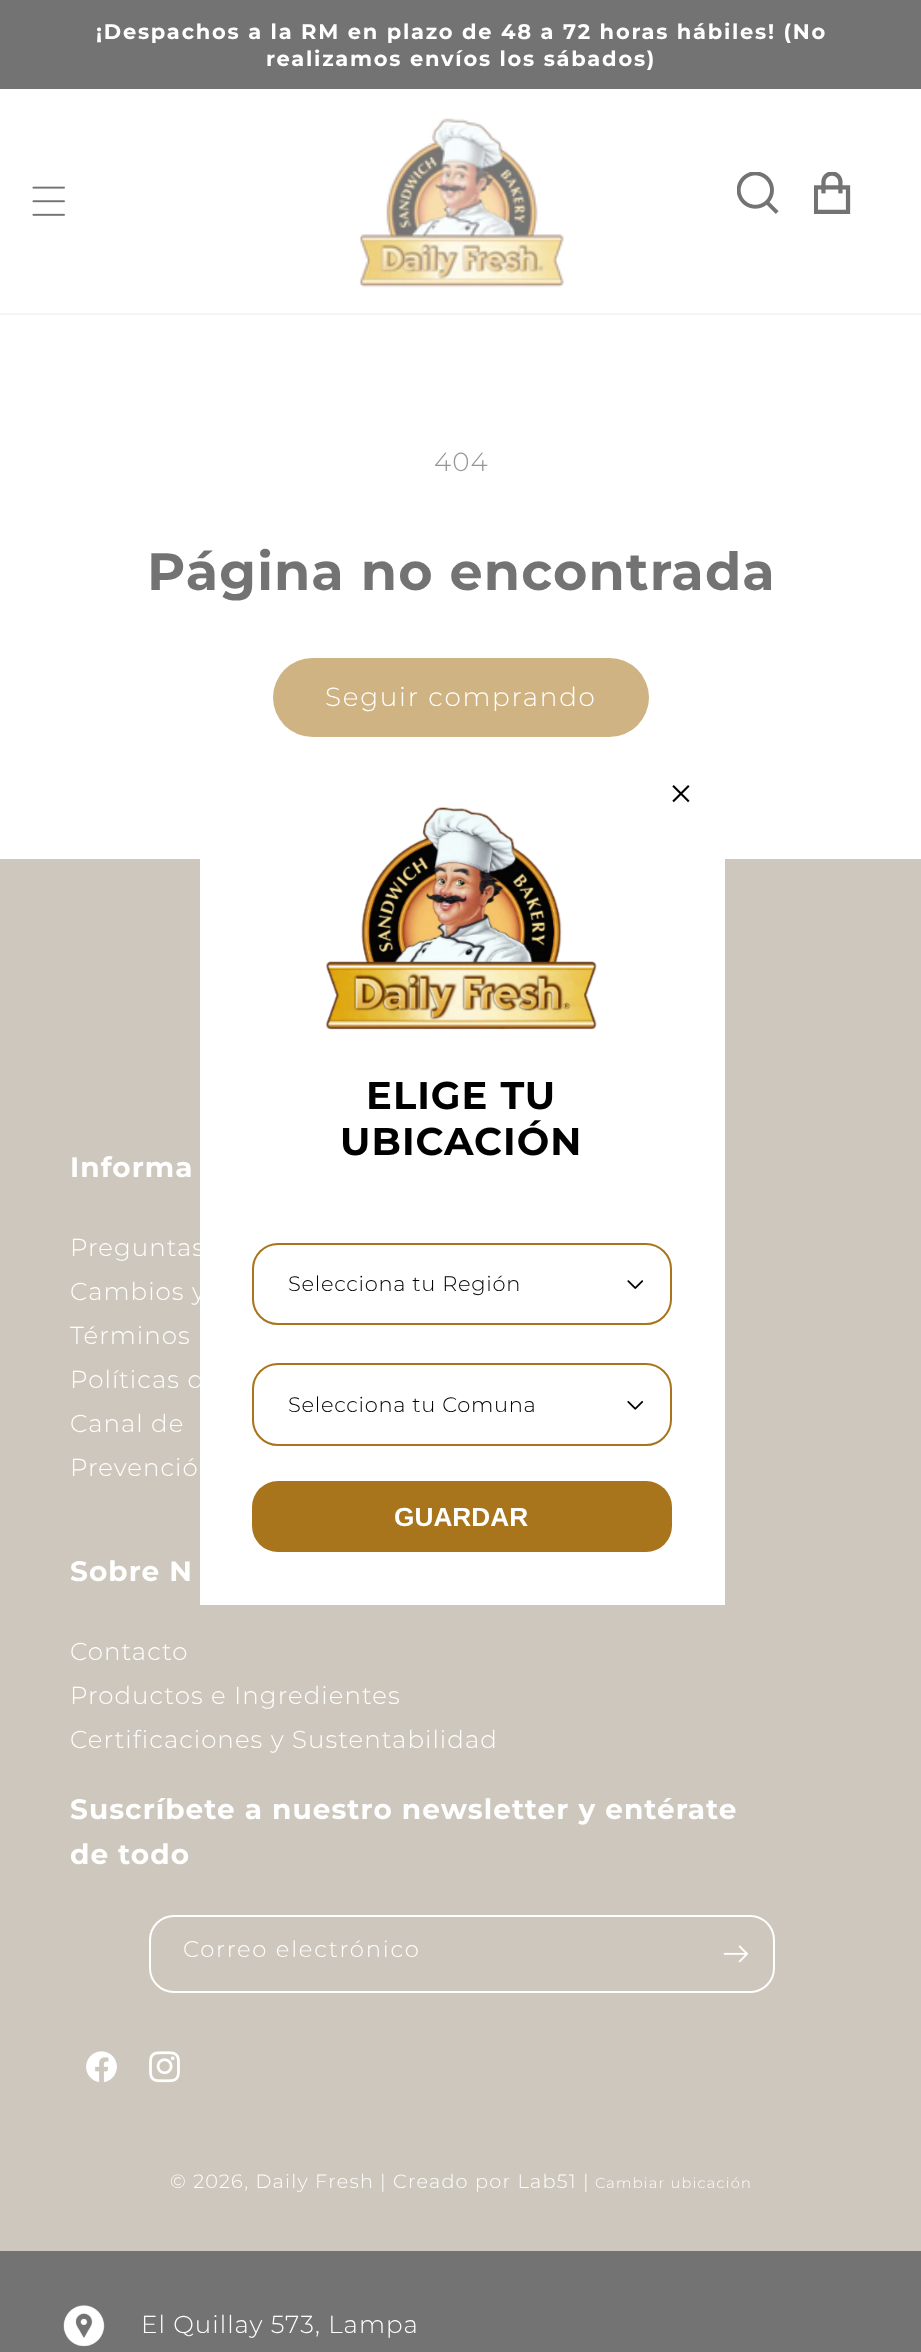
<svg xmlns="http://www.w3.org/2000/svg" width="921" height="2352">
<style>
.a{font:bold 21px Montserrat;letter-spacing:1.75px;fill:#fff}
.b{font:300 26.25px Montserrat;letter-spacing:1.05px;fill:#404040}
.c{font:bold 52.5px Montserrat;letter-spacing:1.05px;fill:#000}
.d{font:300 26.25px Montserrat;letter-spacing:1.75px;fill:#fff}
.e{font:bold 28px Montserrat;letter-spacing:1.05px;fill:#fff}
.f{font:300 24.5px Montserrat;letter-spacing:1.05px;fill:#fff}
.g{font:300 22.75px Montserrat;letter-spacing:1.75px;fill:#fff}
.h{font:300 19.25px Montserrat;letter-spacing:1.25px;fill:#fff}
.i{font:300 14.5px Montserrat;letter-spacing:1.25px;fill:#fff}
.j{font:300 21px Montserrat;letter-spacing:0.7px;fill:#000}
.k{font:300 52.5px Montserrat;letter-spacing:1.05px;fill:#000}
.l{font:bold 26.25px Liberation Sans;fill:#fff}
.m{font:bold 38.5px Montserrat;letter-spacing:1.05px;fill:#000}
</style>
<rect width="100%" height="100%" fill="#fff"/>
<path fill="#000" d="M0 0h921v89H0z"/>
<path fill="#ebebeb" d="M0 313h921v2H0z"/>
<image href="1.png" x="32" y="186" width="33" height="30"/>
<image href="2.png" x="359" y="118" width="205" height="170"/>
<image href="3.png" x="737" y="172" width="42" height="42"/>
<image href="4.png" x="814" y="172" width="37" height="42"/>
<rect fill="#a8751d" x="273" y="658" width="376" height="79" rx="39.5"/>
<path fill="#a59a87" d="M0 859h921v1392H0z"/>
<rect fill="none" stroke="#fff" stroke-width="2" x="150" y="1916" width="624" height="76" rx="24"/>
<image href="8.png" x="723" y="1945" width="25" height="18"/>
<image href="9.png" x="86" y="2051" width="31" height="31"/>
<image href="10.png" x="149" y="2051" width="31" height="32"/>
<path fill="#000" d="M0 2251h921v101H0z"/>
<image href="11.png" x="63" y="2305" width="42" height="42"/>
<text class="a" x="96" y="39">¡Despachos a la RM en plazo de 48 a 72 horas hábiles! (No</text>
<text class="a" x="266" y="66">realizamos envíos los sábados)</text>
<text class="b" x="434" y="471">404</text>
<text class="c" x="147" y="590">Página no encontrada</text>
<text class="d" x="325" y="706">Seguir comprando</text>
<text class="e" x="70" y="1177">Informa</text>
<text class="f" x="70" y="1256">Preguntas</text>
<text class="f" x="70" y="1300">Cambios y</text>
<text class="f" x="70" y="1344">Términos</text>
<text class="f" x="70" y="1388">Políticas d</text>
<text class="f" x="70" y="1432">Canal de</text>
<text class="f" x="70" y="1476">Prevenció</text>
<text class="e" x="70" y="1581">Sobre N</text>
<text class="f" x="70" y="1660">Contacto</text>
<text class="f" x="70" y="1704">Productos e Ingredientes</text>
<text class="f" x="70" y="1748">Certificaciones y Sustentabilidad</text>
<text class="e" x="70" y="1819">Suscríbete a nuestro newsletter y entérate</text>
<text class="e" x="70" y="1864">de todo</text>
<text class="g" x="183" y="1957">Correo electrónico</text>
<text class="h" x="170" y="2188">© 2026, Daily Fresh</text>
<text class="h" x="380" y="2188">| Creado por Lab51 |</text>
<text class="i" x="595" y="2188">Cambiar ubicación</text>
<text class="f" x="141" y="2333">El Quillay 573, Lampa</text>
<path fill="none" stroke="#ffffff73" stroke-width="2767" d="M-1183.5 -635.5h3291v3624H-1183.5z"/>
<path fill="#fff" d="M200 859h525v746H200z"/>
<image href="7.png" x="627" y="1401" width="17" height="9"/>
<rect fill="none" stroke="#a8751d" stroke-width="2" x="253" y="1364" width="418" height="81" rx="25"/>
<image href="6.png" x="627" y="1280" width="17" height="9"/>
<rect fill="none" stroke="#a8751d" stroke-width="2" x="253" y="1244" width="418" height="80" rx="25"/>
<text class="j" x="288" y="1412">Selecciona tu Comuna</text>
<text class="j" x="288" y="1291">Selecciona tu Región</text>
<text class="k" x="666" y="812">×</text>
<rect fill="#a8751d" x="252" y="1481" width="420" height="71" rx="26"/>
<text class="l" x="394" y="1526">GUARDAR</text>
<text class="m" x="340" y="1155">UBICACIÓN</text>
<text class="m" x="366" y="1109">ELIGE TU</text>
<image href="5.png" x="325" y="807" width="272" height="223"/>
</svg>
